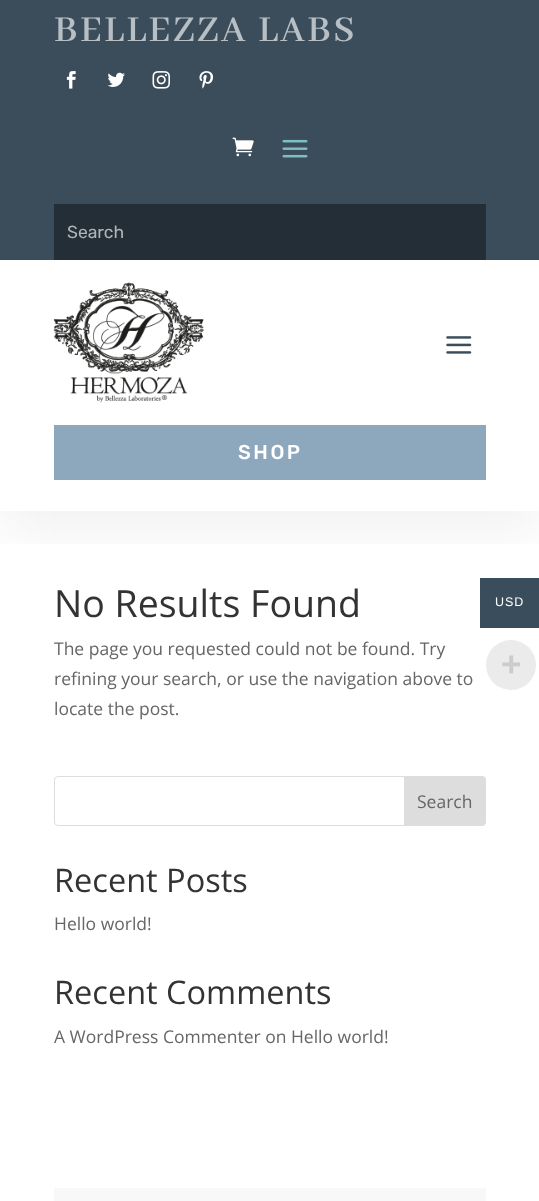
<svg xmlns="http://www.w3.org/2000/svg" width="539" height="1201">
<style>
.a{font:600 40px Abhaya Libre SemiBold;letter-spacing:2.5px;fill:#b8bfc4}
.b{font:17.5px Rubik;fill:#b0b4b7}
.c{font:500 20px Rubik;letter-spacing:2.5px;fill:#fff}
.d{font:37.5px Open Sans;fill:#333}
.e{font:17.5px Open Sans;fill:#666}
.f{font:32.5px Open Sans;fill:#333}
.g{font:12.5px Liberation Sans;letter-spacing:1px;fill:#fff}
.h{font:bold 35px Liberation Sans;fill:#ccc}
</style>
<defs>
<clipPath id="clip1"><path d="M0 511h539v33H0z"/></clipPath>
</defs>
<rect width="100%" height="100%" fill="#fff"/>
<path fill="#3b4d5b" d="M0 0h539v260H0z"/>
<image href="1.png" x="66" y="71" width="10" height="18"/>
<image href="2.png" x="107" y="72" width="18" height="15"/>
<image href="3.png" x="152" y="71" width="18" height="18"/>
<image href="4.png" x="199" y="71" width="15" height="18"/>
<image href="5.png" x="232" y="137" width="22" height="20"/>
<image href="6.png" x="282" y="139" width="26" height="19"/>
<path fill="#232e37" d="M54 204h432v56H54z"/>
<g clip-path="url(#clip1)">
<path fill="#0000000f" filter="blur(30px)" d="M0 280h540v251H0z"/>
</g>
<image href="7.png" x="53" y="282" width="151" height="121"/>
<image href="8.png" x="446" y="336" width="26" height="18"/>
<path fill="#8da7bd" d="M54 425h432v55H54z"/>
<rect fill="none" stroke="#ddd" x="54.5" y="776.5" width="431" height="49" rx="3.5"/>
<path fill="#ddd" stroke="#ddd" d="M404.5 776.5h77.5c2 0 3.5 1.5 3.5 3.5v42c0 2-1.5 3.5-3.5 3.5h-77.5z"/>
<path fill="#f8f8f8" d="M54 1188h432v13H54z"/>
<path fill="#3a4d5c" d="M480 578h59v50H480z"/>
<circle fill="#ebebeb" cx="511" cy="665" r="25"/>
<text class="a" x="54" y="41">BELLEZZA LABS</text>
<text class="b" x="67" y="238">Search</text>
<text class="c" x="238" y="459">SHOP</text>
<text class="d" x="54" y="617">No Results Found</text>
<text class="e" x="54" y="655">The page you requested could not be found. Try</text>
<text class="e" x="54" y="685">refining your search, or use the navigation above to</text>
<text class="e" x="54" y="715">locate the post.</text>
<text class="e" x="417" y="808">Search</text>
<text class="f" x="54" y="892">Recent Posts</text>
<text class="e" x="54" y="930">Hello world!</text>
<text class="f" x="54" y="1004">Recent Comments</text>
<text class="e" x="54" y="1043">A WordPress Commenter on Hello world!</text>
<text class="g" x="495" y="606">USD</text>
<text class="h" x="501" y="676">+</text>
</svg>
